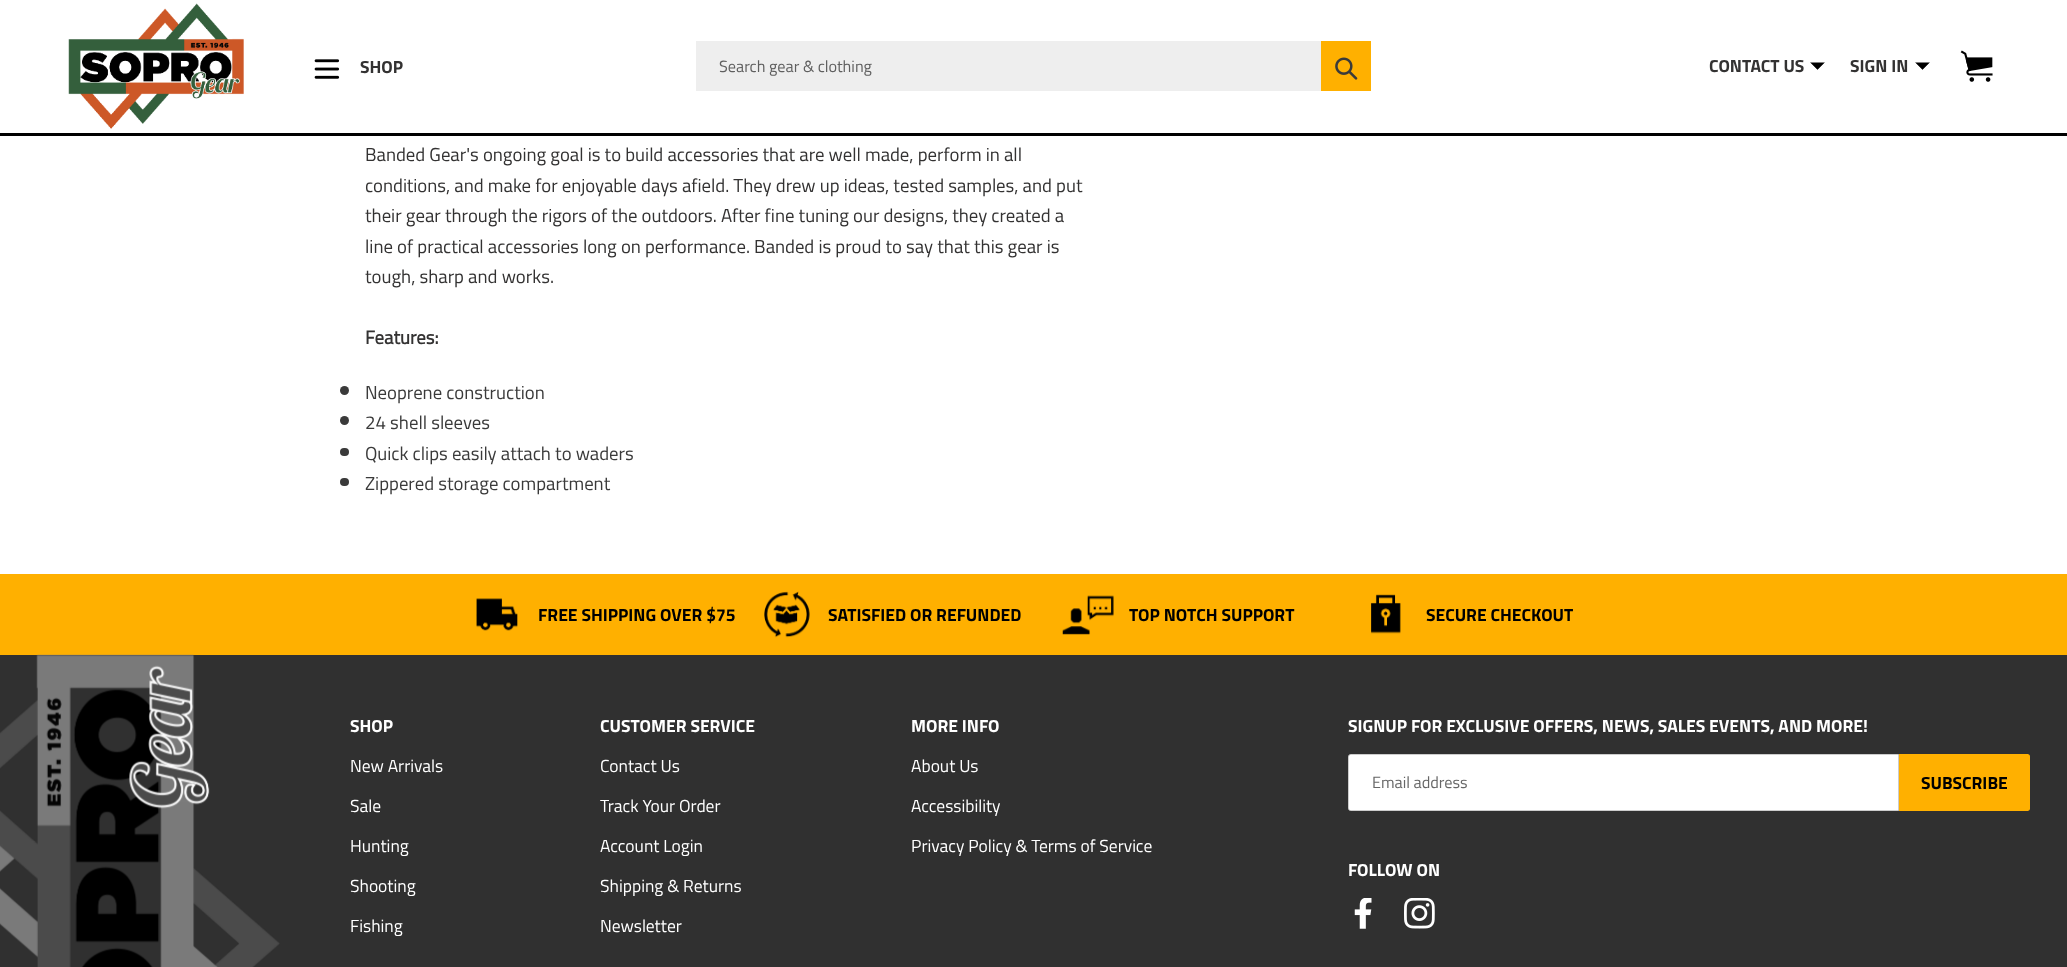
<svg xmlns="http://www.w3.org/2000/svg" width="2067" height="967">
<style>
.a{font:bold 17.5px 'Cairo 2';fill:#333232}
.b{font:16.25px Cairo;fill:#5f5f5f}
.c{font:18.75px Cairo;fill:#333232}
.d{font:bold 18.75px Cairo;fill:#333232}
.e{font:18.75px Cairo;fill:#3a3a3a}
.f{font:bold 17.5px 'Cairo 2';fill:#000}
.g{font:bold 17.5px 'Cairo 2';fill:#fff}
.h{font:17.5px Cairo;fill:#fff}
.i{font:16.25px Cairo;fill:#666}
</style>
<rect width="100%" height="100%" fill="#fff"/>
<path fill="#000" d="M0 133h2067v3H0z"/>
<image href="1.png" x="68" y="3" width="176" height="126"/>
<image href="2.png" x="314" y="59" width="26" height="20"/>
<path fill="#eee" d="M696 41h625v50H696z"/>
<path fill="#ffb000" d="M1321 41h50v50H1321z"/>
<image href="3.png" x="1335" y="57" width="23" height="23"/>
<path fill="#000" d="M1810 62.5h15l-7.5 7.5z"/>
<path fill="#fff" d="M1825 62.5v7.5h-7.5z"/>
<path fill="#fff" d="M1810 70v-7.5l7.5 7.5z"/>
<path fill="#000" d="M1915 62.5h15l-7.5 7.5z"/>
<path fill="#fff" d="M1930 62.5v7.5h-7.5z"/>
<path fill="#fff" d="M1915 70v-7.5l7.5 7.5z"/>
<image href="4.png" x="1960" y="50" width="33" height="32"/>
<circle fill="#3a3a3a" cx="344.5" cy="390.5" r="4.5"/>
<circle fill="#3a3a3a" cx="344.5" cy="420.5" r="4.5"/>
<rect fill="#3a3a3a" x="340" y="448" width="9" height="8" rx="4"/>
<rect fill="#3a3a3a" x="340" y="478" width="9" height="8" rx="4"/>
<path fill="#ffb000" d="M0 574h2067v81H0z"/>
<image href="5.png" x="476" y="598" width="42" height="33"/>
<image href="6.png" x="764" y="591" width="46" height="47"/>
<image href="7.png" x="1062" y="595" width="52" height="40"/>
<image href="8.png" x="1371" y="594" width="30" height="40"/>
<path fill="#303030" d="M0 655h2067v312H0z"/>
<image href="9.png" x="0" y="654" width="280" height="313"/>
<path fill="#fff" stroke="#ccc" d="M1350.5 754.5h548v56h-548c-1 0-2-1-2-2v-52c0-1 1-2 2-2z"/>
<path fill="#ffb000" d="M1899 754h128.5c1.5 0 2.5 1 2.5 2.5v52c0 1.5-1 2.5-2.5 2.5h-128.5z"/>
<image href="10.png" x="1354" y="898" width="18" height="31"/>
<image href="11.png" x="1404" y="898" width="31" height="31"/>
<text class="a" x="360" y="73">SHOP</text>
<text class="b" x="719" y="72">Search gear &amp; clothing</text>
<text class="a" x="1709" y="72">CONTACT US</text>
<text class="a" x="1850" y="72">SIGN IN</text>
<text class="c" x="365" y="161">Banded Gear's ongoing goal is to build accessories that are well made, perform in all</text>
<text class="c" x="365" y="192">conditions, and make for enjoyable days afield. They drew up ideas, tested samples, and put</text>
<text class="c" x="365" y="222">their gear through the rigors of the outdoors. After fine tuning our designs, they created a</text>
<text class="c" x="365" y="253">line of practical accessories long on performance. Banded is proud to say that this gear is</text>
<text class="c" x="365" y="283">tough, sharp and works.</text>
<text class="d" x="365" y="344">Features:</text>
<text class="e" x="365" y="399">Neoprene construction</text>
<text class="e" x="365" y="429">24 shell sleeves</text>
<text class="e" x="365" y="460">Quick clips easily attach to waders</text>
<text class="e" x="365" y="490">Zippered storage compartment</text>
<text class="f" x="538" y="621">FREE SHIPPING OVER $75</text>
<text class="f" x="828" y="621">SATISFIED OR REFUNDED</text>
<text class="f" x="1129" y="621">TOP NOTCH SUPPORT</text>
<text class="f" x="1426" y="621">SECURE CHECKOUT</text>
<text class="g" x="350" y="732">SHOP</text>
<text class="h" x="350" y="772">New Arrivals</text>
<text class="h" x="350" y="812">Sale</text>
<text class="h" x="350" y="852">Hunting</text>
<text class="h" x="350" y="892">Shooting</text>
<text class="h" x="350" y="932">Fishing</text>
<text class="g" x="600" y="732">CUSTOMER SERVICE</text>
<text class="h" x="600" y="772">Contact Us</text>
<text class="h" x="600" y="812">Track Your Order</text>
<text class="h" x="600" y="852">Account Login</text>
<text class="h" x="600" y="892">Shipping &amp; Returns</text>
<text class="h" x="600" y="932">Newsletter</text>
<text class="g" x="911" y="732">MORE INFO</text>
<text class="h" x="911" y="772">About Us</text>
<text class="h" x="911" y="812">Accessibility</text>
<text class="h" x="911" y="852">Privacy Policy &amp; Terms of Service</text>
<text class="g" x="1348" y="732">SIGNUP FOR EXCLUSIVE OFFERS, NEWS, SALES EVENTS, AND MORE!</text>
<text class="i" x="1372" y="788">Email address</text>
<text class="f" x="1921" y="789">SUBSCRIBE</text>
<text class="g" x="1348" y="876">FOLLOW ON</text>
</svg>
